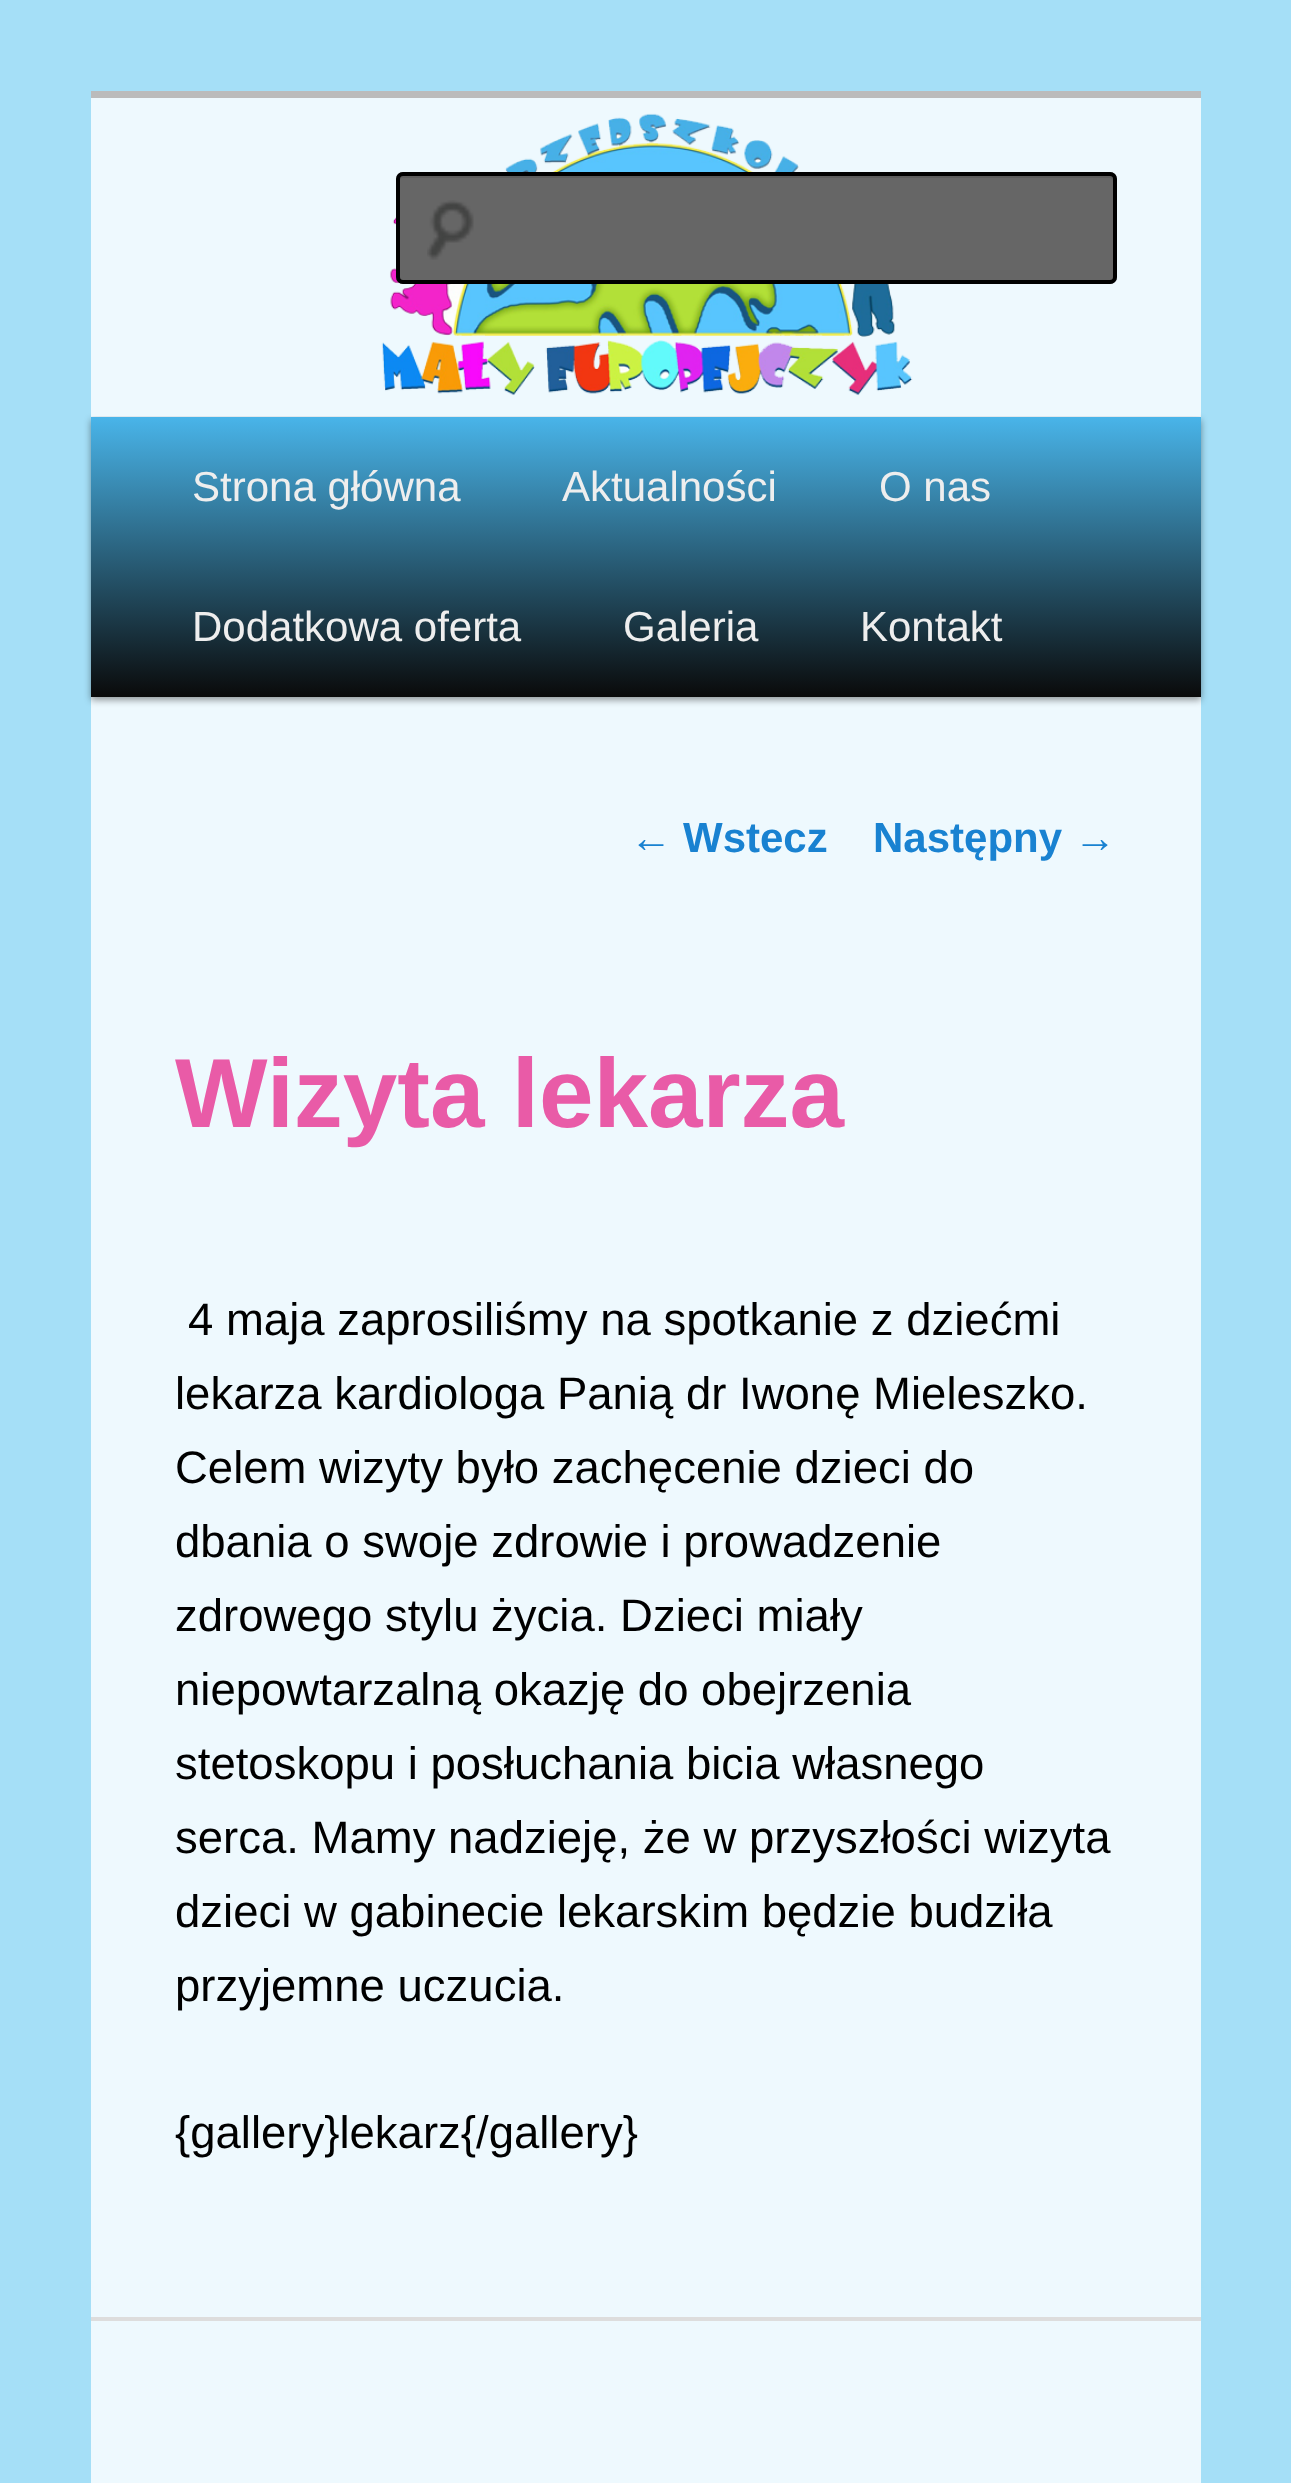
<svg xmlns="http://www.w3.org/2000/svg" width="1291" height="2483">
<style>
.a{font:42px Liberation Sans;fill:#eee}
.b{font:42px Liberation Sans;fill:#1982d1}
.c{font:bold 42px Liberation Sans;fill:#1982d1}
.d{font:bold 98px Liberation Sans;fill:#e95ba7}
.e{font:45.5px Liberation Sans;fill:#000}
</style>
<defs>
<linearGradient id="g1" gradientUnits="userSpaceOnUse" x1="646" y1="416" x2="646" y2="697"><stop offset="0" stop-color="#49b5ea"/><stop offset="1" stop-color="#0a0a0a"/></linearGradient>
</defs>
<rect width="100%" height="100%" fill="#a5dff7"/>
<path fill="#eef9fe" d="M91 98h1110v2385H91z"/>
<path fill="#bbb" d="M91 91h1110v7H91z"/>
<path fill="#00000066" filter="blur(3.5px)" d="M91 420h1110v280H91z"/>
<image href="1.png" x="91" y="113" width="1109" height="303"/>
<rect fill="#666" x="396" y="172" width="721" height="112" rx="7"/>
<image href="2.png" x="427" y="200" width="47" height="60"/>
<path fill="#5c5c5c" d="M402 178h708c1 0 3 2 3 4c0-3 0-7-4-7h-706c-4 0-4 4-4 7c0-2 2-4 3-4z"/>
<rect fill="none" stroke="#000" stroke-width="4" x="398" y="174" width="717" height="108" rx="5"/>
<path fill="url(#g1)" d="M91 417h1110v280H91z"/>
<path fill="#ddd" d="M91 2317h1110v4H91z"/>
<text class="a" x="192" y="501">Strona główna</text>
<text class="a" x="562" y="501">Aktualności</text>
<text class="a" x="879" y="501">O nas</text>
<text class="a" x="192" y="641">Dodatkowa oferta</text>
<text class="a" x="623" y="641">Galeria</text>
<text class="a" x="860" y="641">Kontakt</text>
<text class="b" x="630" y="852">←</text>
<text class="c" x="683" y="852">Wstecz</text>
<text class="c" x="873" y="852">Następny</text>
<text class="b" x="1074" y="852">→</text>
<text class="d" x="175" y="1127">Wizyta lekarza</text>
<text class="e" x="188" y="1335">4 maja zaprosiliśmy na spotkanie z dziećmi</text>
<text class="e" x="175" y="1409">lekarza kardiologa Panią dr Iwonę Mieleszko.</text>
<text class="e" x="175" y="1483">Celem wizyty było zachęcenie dzieci do</text>
<text class="e" x="175" y="1557">dbania o swoje zdrowie i prowadzenie</text>
<text class="e" x="175" y="1631">zdrowego stylu życia. Dzieci miały</text>
<text class="e" x="175" y="1705">niepowtarzalną okazję do obejrzenia</text>
<text class="e" x="175" y="1779">stetoskopu i posłuchania bicia własnego</text>
<text class="e" x="175" y="1853">serca. Mamy nadzieję, że w przyszłości wizyta</text>
<text class="e" x="175" y="1927">dzieci w gabinecie lekarskim będzie budziła</text>
<text class="e" x="175" y="2001">przyjemne uczucia.</text>
<text class="e" x="175" y="2148">{gallery}lekarz{/gallery}</text>
</svg>
